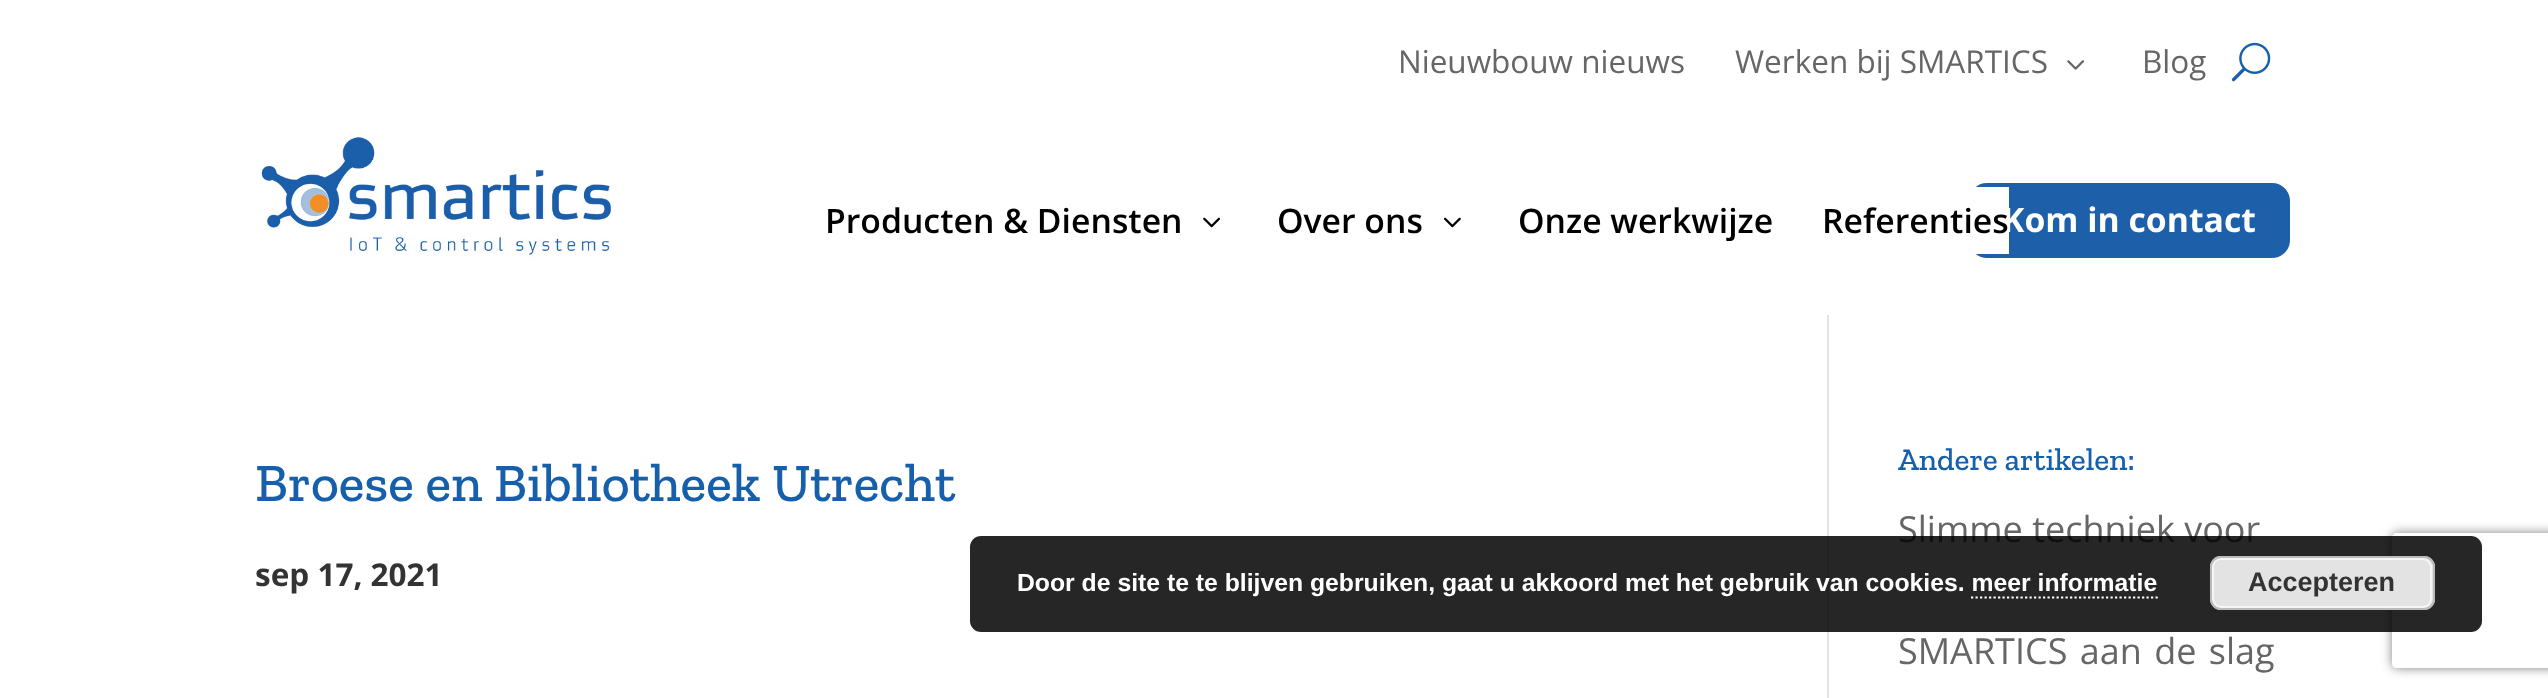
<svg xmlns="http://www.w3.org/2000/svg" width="2548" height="698">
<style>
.a{font:31.5px Open Sans;fill:#666}
.b{font:600 33.75px Open Sans;fill:#000}
.c{font:bold 33.75px Open Sans;fill:#fff}
.d{font:500 54px Zilla Slab;fill:#165faa}
.e{font:bold 31.5px Open Sans;fill:#333}
.f{font:500 31.5px Zilla Slab;fill:#165faa}
.g{font:36px Open Sans;fill:#666}
.h{font:bold 24.75px Liberation Sans;fill:#fff}
.i{font:bold 27px Liberation Sans;fill:#333}
</style>
<defs>
<clipPath id="clip1"><path d="M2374 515h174v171h-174zm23 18h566c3 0 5 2 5 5v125c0 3-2 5-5 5h-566c-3 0-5-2-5-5v-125c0-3 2-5 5-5z" clip-rule="evenodd"/></clipPath>
</defs>
<rect width="100%" height="100%" fill="#fff"/>
<image href="1.png" x="2067" y="60" width="17" height="10"/>
<image href="2.png" x="2231" y="42" width="40" height="40"/>
<image href="3.png" x="259" y="135" width="352" height="124"/>
<rect fill="#1e5faa" stroke="#fff" stroke-width="5" x="1966.5" y="180.5" width="326" height="80" rx="20.5"/>
<path fill="#fff" d="M1964 187h45v67H1964z"/>
<image href="4.png" x="1203" y="217" width="17" height="11"/>
<image href="5.png" x="1444" y="217" width="17" height="11"/>
<path fill="#e2e2e2" d="M1827 315h2v383H1827z"/>
<g clip-path="url(#clip1)">
<rect fill="#808080" filter="blur(5.5px)" x="2392" y="533" width="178" height="135" rx="5"/>
</g>
<text class="a" x="1398" y="73">Nieuwbouw nieuws</text>
<text class="a" x="1735" y="73">Werken bij SMARTICS</text>
<text class="a" x="2142" y="73">Blog</text>
<text class="b" x="825" y="233">Producten &amp; Diensten</text>
<text class="b" x="1277" y="233">Over ons</text>
<text class="b" x="1518" y="233">Onze werkwijze</text>
<text class="c" x="2002" y="232">Kom in contact</text>
<text class="b" x="1822" y="233">Referenties</text>
<text class="d" x="255" y="501">Broese en Bibliotheek Utrecht</text>
<text class="e" x="255" y="586">sep 17, 2021</text>
<text class="f" x="1898" y="470">Andere artikelen:</text>
<text class="g" x="1898" y="542">Slimme techniek voor</text>
<text class="g" x="1898" y="664" word-spacing="3">SMARTICS aan de slag</text>
<rect fill="#000000d9" x="970" y="536" width="1512" height="96" rx="11"/>
<text class="h" x="1017" y="591">Door de site te te blijven gebruiken, gaat u akkoord met het gebruik van cookies. meer informatie</text>
<rect fill="#e3e3e3" x="2210" y="556" width="225" height="54" rx="11"/>
<rect fill="none" stroke="#f6f6f6" stroke-width="2" x="2213" y="559" width="218" height="48" rx="8"/>
<rect fill="none" stroke="#bbb" stroke-width="2" x="2211" y="557" width="223" height="52" rx="10"/>
<text class="i" x="2248" y="591">Accepteren</text>
<path fill="none" stroke="#fff" stroke-width="2.2" stroke-dasharray="2.25 2.25" d="M1971 597.5h187"/>
</svg>
